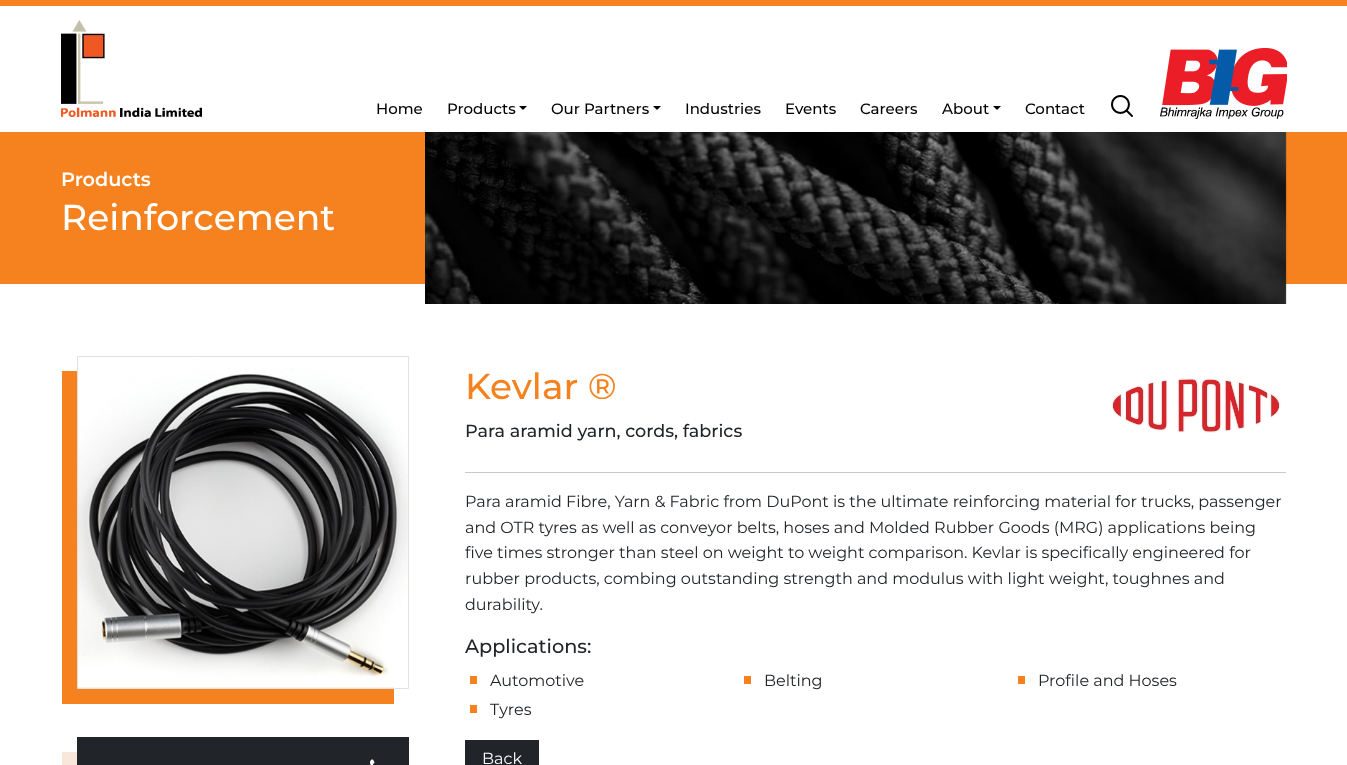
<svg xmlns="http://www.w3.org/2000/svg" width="1347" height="765">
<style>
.a{font:500 15px Montserrat;fill:#000}
.b{font:600 19.25px Montserrat;fill:#fff}
.c{font:500 36px Montserrat;fill:#fff}
.d{font:500 36px Montserrat;fill:#f5821f}
.e{font:500 17.6px Montserrat;fill:#212529}
.f{font:16px Montserrat;fill:#212529}
.g{font:500 19.25px Montserrat;fill:#212529}
.h{font:16px Montserrat;fill:#fff}
</style>
<rect width="100%" height="100%" fill="#fff"/>
<path fill="#f5821f" d="M0 0h1347v6H0z"/>
<image href="1.png" x="61" y="20" width="141" height="97"/>
<path fill="#000" d="M519 106h8l-4 4z"/>
<path fill="#000" d="M653 106h8l-4 4z"/>
<path fill="#000" d="M993 106h8l-4 4z"/>
<image href="2.png" x="1111" y="95" width="22" height="22"/>
<image href="3.png" x="1160" y="48" width="127" height="71"/>
<path fill="#f5821f" d="M0 132h1347v152H0z"/>
<image href="4.png" x="425" y="132" width="862" height="172"/>
<path fill="#f5821f" d="M62 371h332v333H62z"/>
<path fill="none" stroke="#dee2e6" d="M77.5 356.5h331v332H77.5z"/>
<image href="5.png" x="78" y="357" width="330" height="331"/>
<path fill="#f9e8d9" d="M62 752h15v13H62z"/>
<path fill="#212529" d="M77 737h332v28H77z"/>
<image href="6.png" x="370" y="759" width="5" height="6"/>
<image href="7.png" x="1111" y="378" width="170" height="55"/>
<path fill="#c8c9ca" d="M465 472h821v1H465z"/>
<path fill="#f5821f" d="M470 676h7v8H470z"/>
<path fill="#f5821f" d="M744 676h7v8H744z"/>
<path fill="#f5821f" d="M1018 676h7v8H1018z"/>
<path fill="#f5821f" d="M470 705h7v8H470z"/>
<path fill="#212529" d="M465 740h74v25H465z"/>
<text class="a" x="376" y="114">Home</text>
<text class="a" x="447" y="114">Products</text>
<text class="a" x="551" y="114">Our Partners</text>
<text class="a" x="685" y="114">Industries</text>
<text class="a" x="785" y="114">Events</text>
<text class="a" x="860" y="114">Careers</text>
<text class="a" x="942" y="114">About</text>
<text class="a" x="1025" y="114">Contact</text>
<text class="b" x="61" y="186">Products</text>
<text class="c" x="61" y="230">Reinforcement</text>
<text class="d" x="465" y="399">Kevlar ®</text>
<text class="e" x="465" y="437">Para aramid yarn, cords, fabrics</text>
<text class="f" x="465" y="507">Para aramid Fibre, Yarn &amp; Fabric from DuPont is the ultimate reinforcing material for trucks, passenger</text>
<text class="f" x="465" y="533">and OTR tyres as well as conveyor belts, hoses and Molded Rubber Goods (MRG) applications being</text>
<text class="f" x="465" y="558">five times stronger than steel on weight to weight comparison. Kevlar is specifically engineered for</text>
<text class="f" x="465" y="584">rubber products, combing outstanding strength and modulus with light weight, toughnes and</text>
<text class="f" x="465" y="610">durability.</text>
<text class="g" x="465" y="653">Applications:</text>
<text class="f" x="490" y="686">Automotive</text>
<text class="f" x="764" y="686">Belting</text>
<text class="f" x="1038" y="686">Profile and Hoses</text>
<text class="f" x="490" y="715">Tyres</text>
<text class="h" x="482" y="764">Back</text>
</svg>
